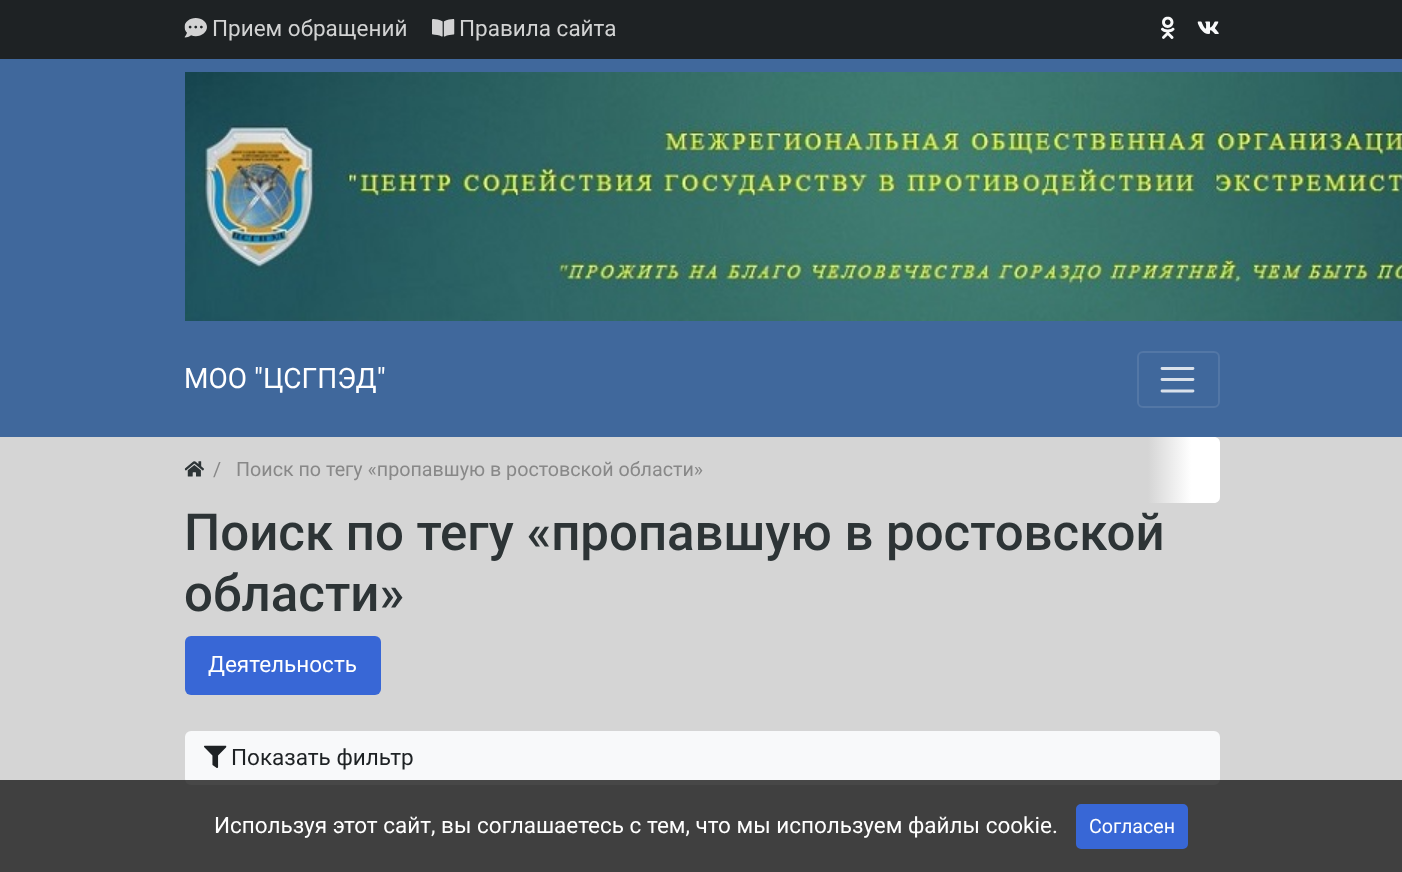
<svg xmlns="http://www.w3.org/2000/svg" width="1402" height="872">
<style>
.a{font:22.5px Roboto;fill:#d2d3d3}
.b{font:28px Roboto;fill:#fff}
.c{font:19.7px Roboto;fill:#888}
.d{font:500 51px Roboto;fill:#2d3436}
.e{font:22.5px Roboto;fill:#fff}
.f{font:22.5px Roboto;fill:#1e2224}
.g{font:19.7px Roboto;fill:#fff}
</style>
<defs>
<linearGradient id="g1" gradientUnits="userSpaceOnUse" x1="1220" y1="470" x2="1148" y2="470"><stop offset="0.4" stop-color="#fff"/><stop offset="1" stop-color="#d5d5d5"/></linearGradient>
</defs>
<rect width="100%" height="100%" fill="#d5d5d5"/>
<path fill="#40689c" d="M0 59h1402v378H0z"/>
<path fill="#1e2224" d="M0 0h1402v59H0z"/>
<image href="1.png" x="184" y="18" width="23" height="20"/>
<image href="2.png" x="432" y="19" width="23" height="18"/>
<image href="3.png" x="1161" y="16" width="14" height="23"/>
<image href="4.png" x="1197" y="21" width="22" height="13"/>
<image href="5.png" x="185" y="72" width="1217" height="249"/>
<rect fill="none" stroke="#5377a6" stroke-width="2" x="1138" y="352" width="81" height="55" rx="5"/>
<path fill="none" stroke="#d9e1eb" stroke-width="2.8" stroke-linecap="round" d="M1162 368.5h31m-31 11h31m-31 11.5h31"/>
<image href="6.png" x="184" y="461" width="20" height="16"/>
<path fill="url(#g1)" d="M1148 437h66c3.5 0 6 2.5 6 6v54c0 3.5-2.5 6-6 6h-66z"/>
<rect fill="#3867d6" x="185" y="636" width="196" height="59" rx="6"/>
<rect fill="#f8f9fa" stroke="#f8f9fa" stroke-width="2" x="186" y="732" width="1033" height="52" rx="5"/>
<image href="7.png" x="204" y="745" width="23" height="23"/>
<path fill="#1a1a1acc" d="M0 780h1402v92H0z"/>
<rect fill="#3867d6" stroke="#3867d6" stroke-width="2" x="1077" y="805" width="110" height="43" rx="4"/>
<text class="a" x="212" y="36">Прием обращений</text>
<text class="a" x="459" y="36">Правила сайта</text>
<text class="b" x="184" y="388">МОО "ЦСГПЭД"</text>
<text class="c" x="213" y="476">/</text>
<text class="c" x="236" y="476">Поиск по тегу «пропавшую в ростовской области»</text>
<text class="d" x="184" y="550">Поиск по тегу «пропавшую в ростовской</text>
<text class="d" x="184" y="611">области»</text>
<text class="e" x="208" y="672">Деятельность</text>
<text class="f" x="231" y="765">Показать фильтр</text>
<text class="e" x="214" y="833">Используя этот сайт, вы соглашаетесь с тем, что мы используем файлы cookie.</text>
<text class="g" x="1089" y="833">Согласен</text>
</svg>
